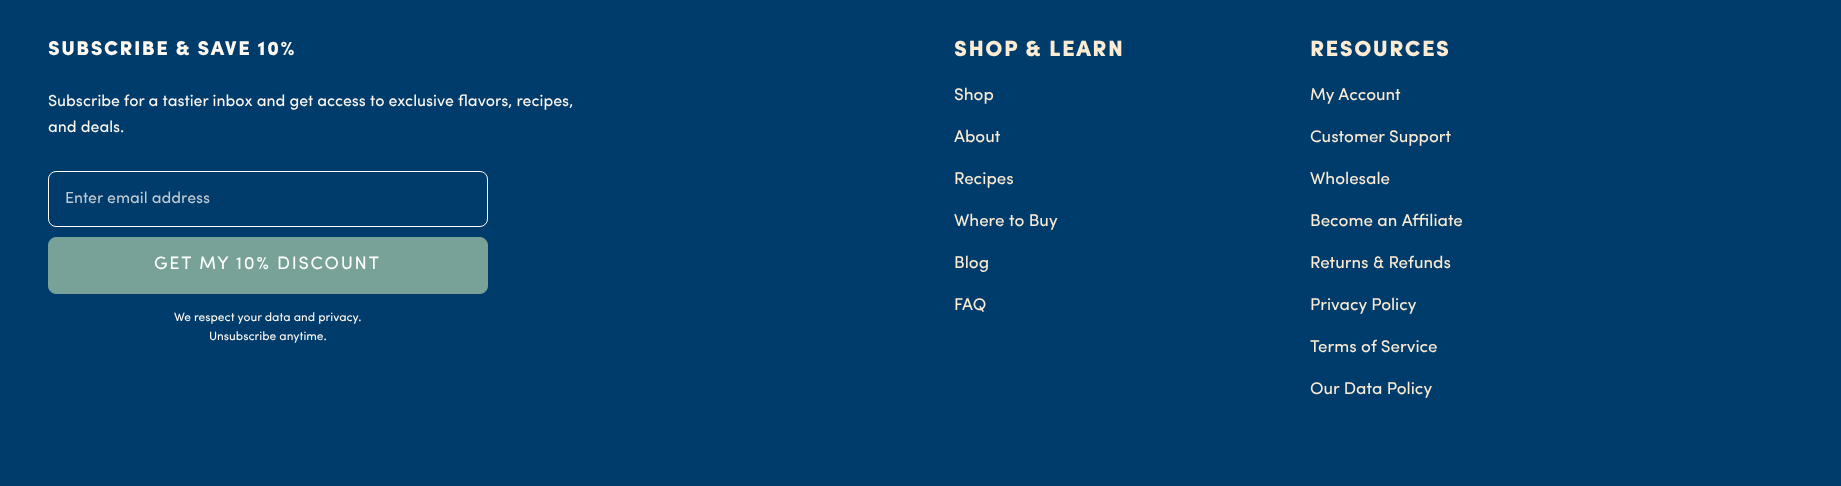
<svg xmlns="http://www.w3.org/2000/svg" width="1841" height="486">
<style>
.a{font:900 20px Sofia;letter-spacing:1.5px;fill:#fff9f1}
.b{font:16px Sofia;fill:#fff9f1}
.c{font:16px Sofia;fill:#bfcad0}
.d{font:18px Sofia;letter-spacing:1.75px;fill:#fff}
.e{font:12px Sofia;fill:#fff9f1}
.f{font:900 22px Sofia;letter-spacing:1.5px;fill:#fcecd4}
.g{font:17px Sofia;fill:#fcecd4}
</style>
<rect width="100%" height="100%" fill="#003c6b"/>
<rect fill="none" stroke="#fff9f1" x="48.5" y="171.5" width="439" height="55" rx="7.5"/>
<rect fill="#78a298" stroke="#78a298" x="48.5" y="237.5" width="439" height="56" rx="7.5"/>
<text class="a" x="48" y="55">SUBSCRIBE &amp; SAVE 10%</text>
<text class="b" x="48" y="106">Subscribe for a tastier inbox and get access to exclusive flavors, recipes,</text>
<text class="b" x="48" y="132">and deals.</text>
<text class="c" x="65" y="203">Enter email address</text>
<text class="d" x="154" y="269">GET MY 10% DISCOUNT</text>
<text class="e" x="174" y="321">We respect your data and privacy.</text>
<text class="e" x="209" y="340">Unsubscribe anytime.</text>
<text class="f" x="954" y="56">SHOP &amp; LEARN</text>
<text class="g" x="954" y="100">Shop</text>
<text class="g" x="954" y="142">About</text>
<text class="g" x="954" y="184">Recipes</text>
<text class="g" x="954" y="226">Where to Buy</text>
<text class="g" x="954" y="268">Blog</text>
<text class="g" x="954" y="310">FAQ</text>
<text class="f" x="1310" y="56">RESOURCES</text>
<text class="g" x="1310" y="100">My Account</text>
<text class="g" x="1310" y="142">Customer Support</text>
<text class="g" x="1310" y="184">Wholesale</text>
<text class="g" x="1310" y="226">Become an Affiliate</text>
<text class="g" x="1310" y="268">Returns &amp; Refunds</text>
<text class="g" x="1310" y="310">Privacy Policy</text>
<text class="g" x="1310" y="352">Terms of Service</text>
<text class="g" x="1310" y="394">Our Data Policy</text>
</svg>
